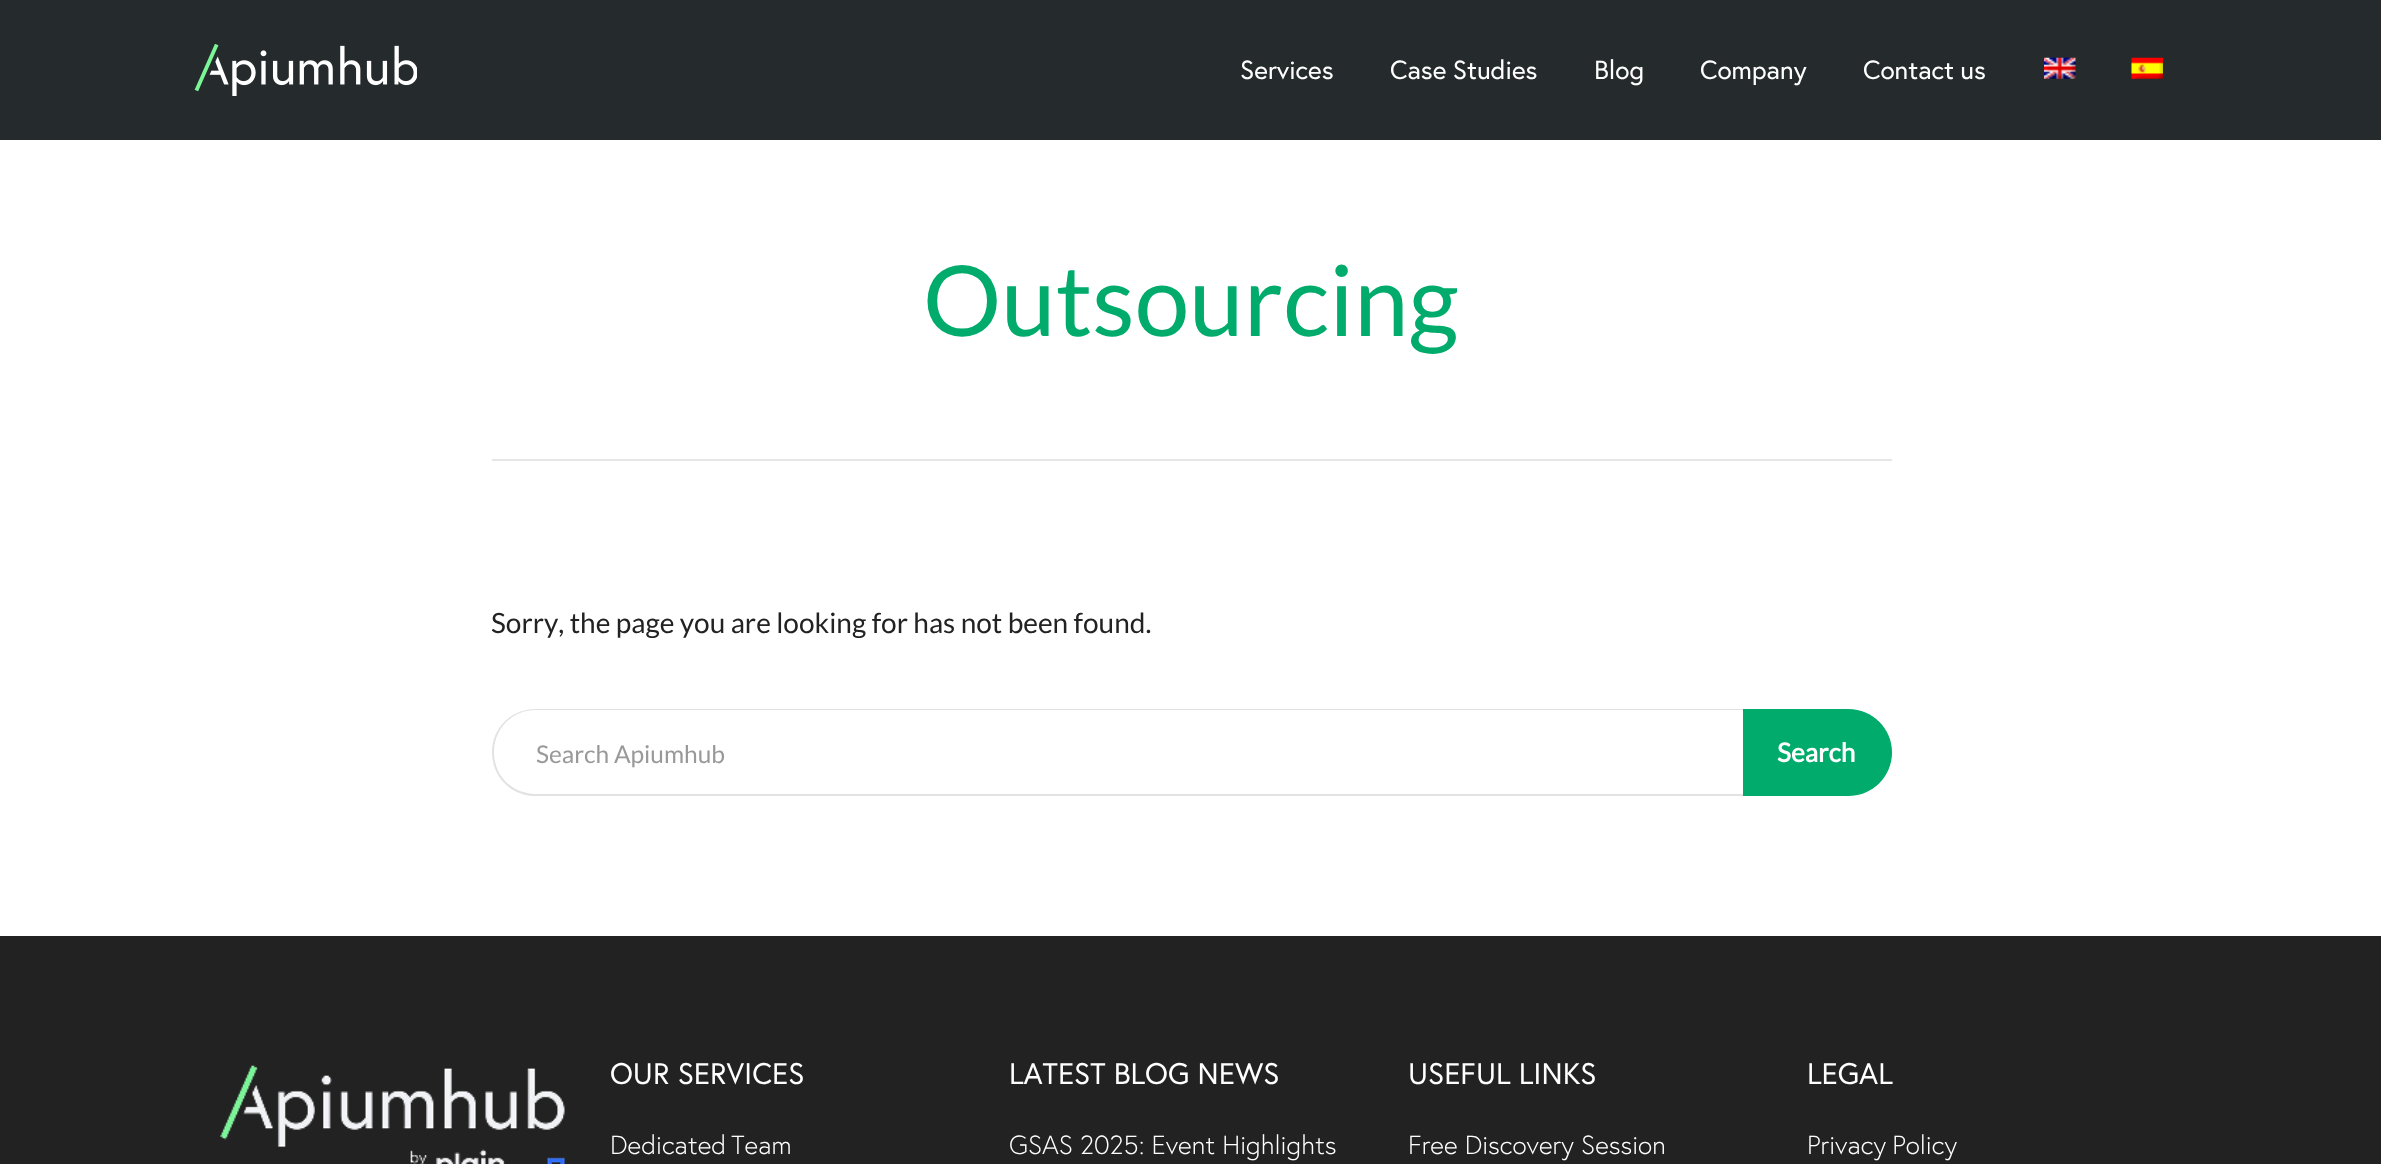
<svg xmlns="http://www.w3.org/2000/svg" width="2381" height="1164">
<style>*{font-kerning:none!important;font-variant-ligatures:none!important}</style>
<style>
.a{font:26.25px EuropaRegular;fill:#fff}
.b{font:98px Lato;fill:#00ab6c}
.c{font:28px Lato;fill:#222}
.d{font:24.5px Lato;fill:#999}
.e{font:bold 26.25px Lato;fill:#fff}
.f{font:29.75px EuropaRegular;fill:#fff}
.g{font:300 26.25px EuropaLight;fill:#fff}
</style>
<rect width="100%" height="100%" fill="#fff"/>
<path fill="#252b2d" d="M0 0h2381v140H0z"/>
<image href="1.png" x="194" y="44" width="223" height="52"/>
<image href="2.png" x="2044" y="57" width="32" height="22"/>
<image href="3.png" x="2131" y="57" width="32" height="22"/>
<path fill="#e6e6e6" d="M492 459h1400v2H492z"/>
<path fill="#e2e2e2" fill-rule="evenodd" d="M536 709h1207v87h-1207c-25 0-44-19-44-44c0-24 19-43 44-43zm0 1h1207v84h-1207c-24 0-42-18-42-42c0-23 18-42 42-42z"/>
<path fill="#00ab6c" d="M1743 709h105.5c24 0 43.5 19.5 43.5 43.5c0 24-19.5 43.5-43.5 43.5h-105.5z"/>
<path fill="#222" d="M0 936h2381v228H0z"/>
<image href="4.png" x="220" y="1065" width="345" height="99"/>
<text class="a" x="1240" y="79">Services</text>
<text class="a" x="1390" y="79" word-spacing="-1">Case Studies</text>
<text class="a" x="1594" y="79">Blog</text>
<text class="a" x="1700" y="79">Company</text>
<text class="a" x="1863" y="79" word-spacing="-1">Contact us</text>
<text class="b" x="923" y="336">Outsourcing</text>
<text class="c" x="491" y="633">Sorry, the page you are looking for has not been found.</text>
<text class="d" x="536" y="763">Search Apiumhub</text>
<text class="e" x="1777" y="762">Search</text>
<text class="f" x="610" y="1084">OUR SERVICES</text>
<text class="g" x="610" y="1154" word-spacing="-2">Dedicated Team</text>
<text class="f" x="1009" y="1084">LATEST BLOG NEWS</text>
<text class="g" x="1009" y="1154">GSAS 2025: Event Highlights</text>
<text class="f" x="1408" y="1084">USEFUL LINKS</text>
<text class="g" x="1408" y="1154">Free Discovery Session</text>
<text class="f" x="1807" y="1084">LEGAL</text>
<text class="g" x="1807" y="1154" word-spacing="-1">Privacy Policy</text>
</svg>
